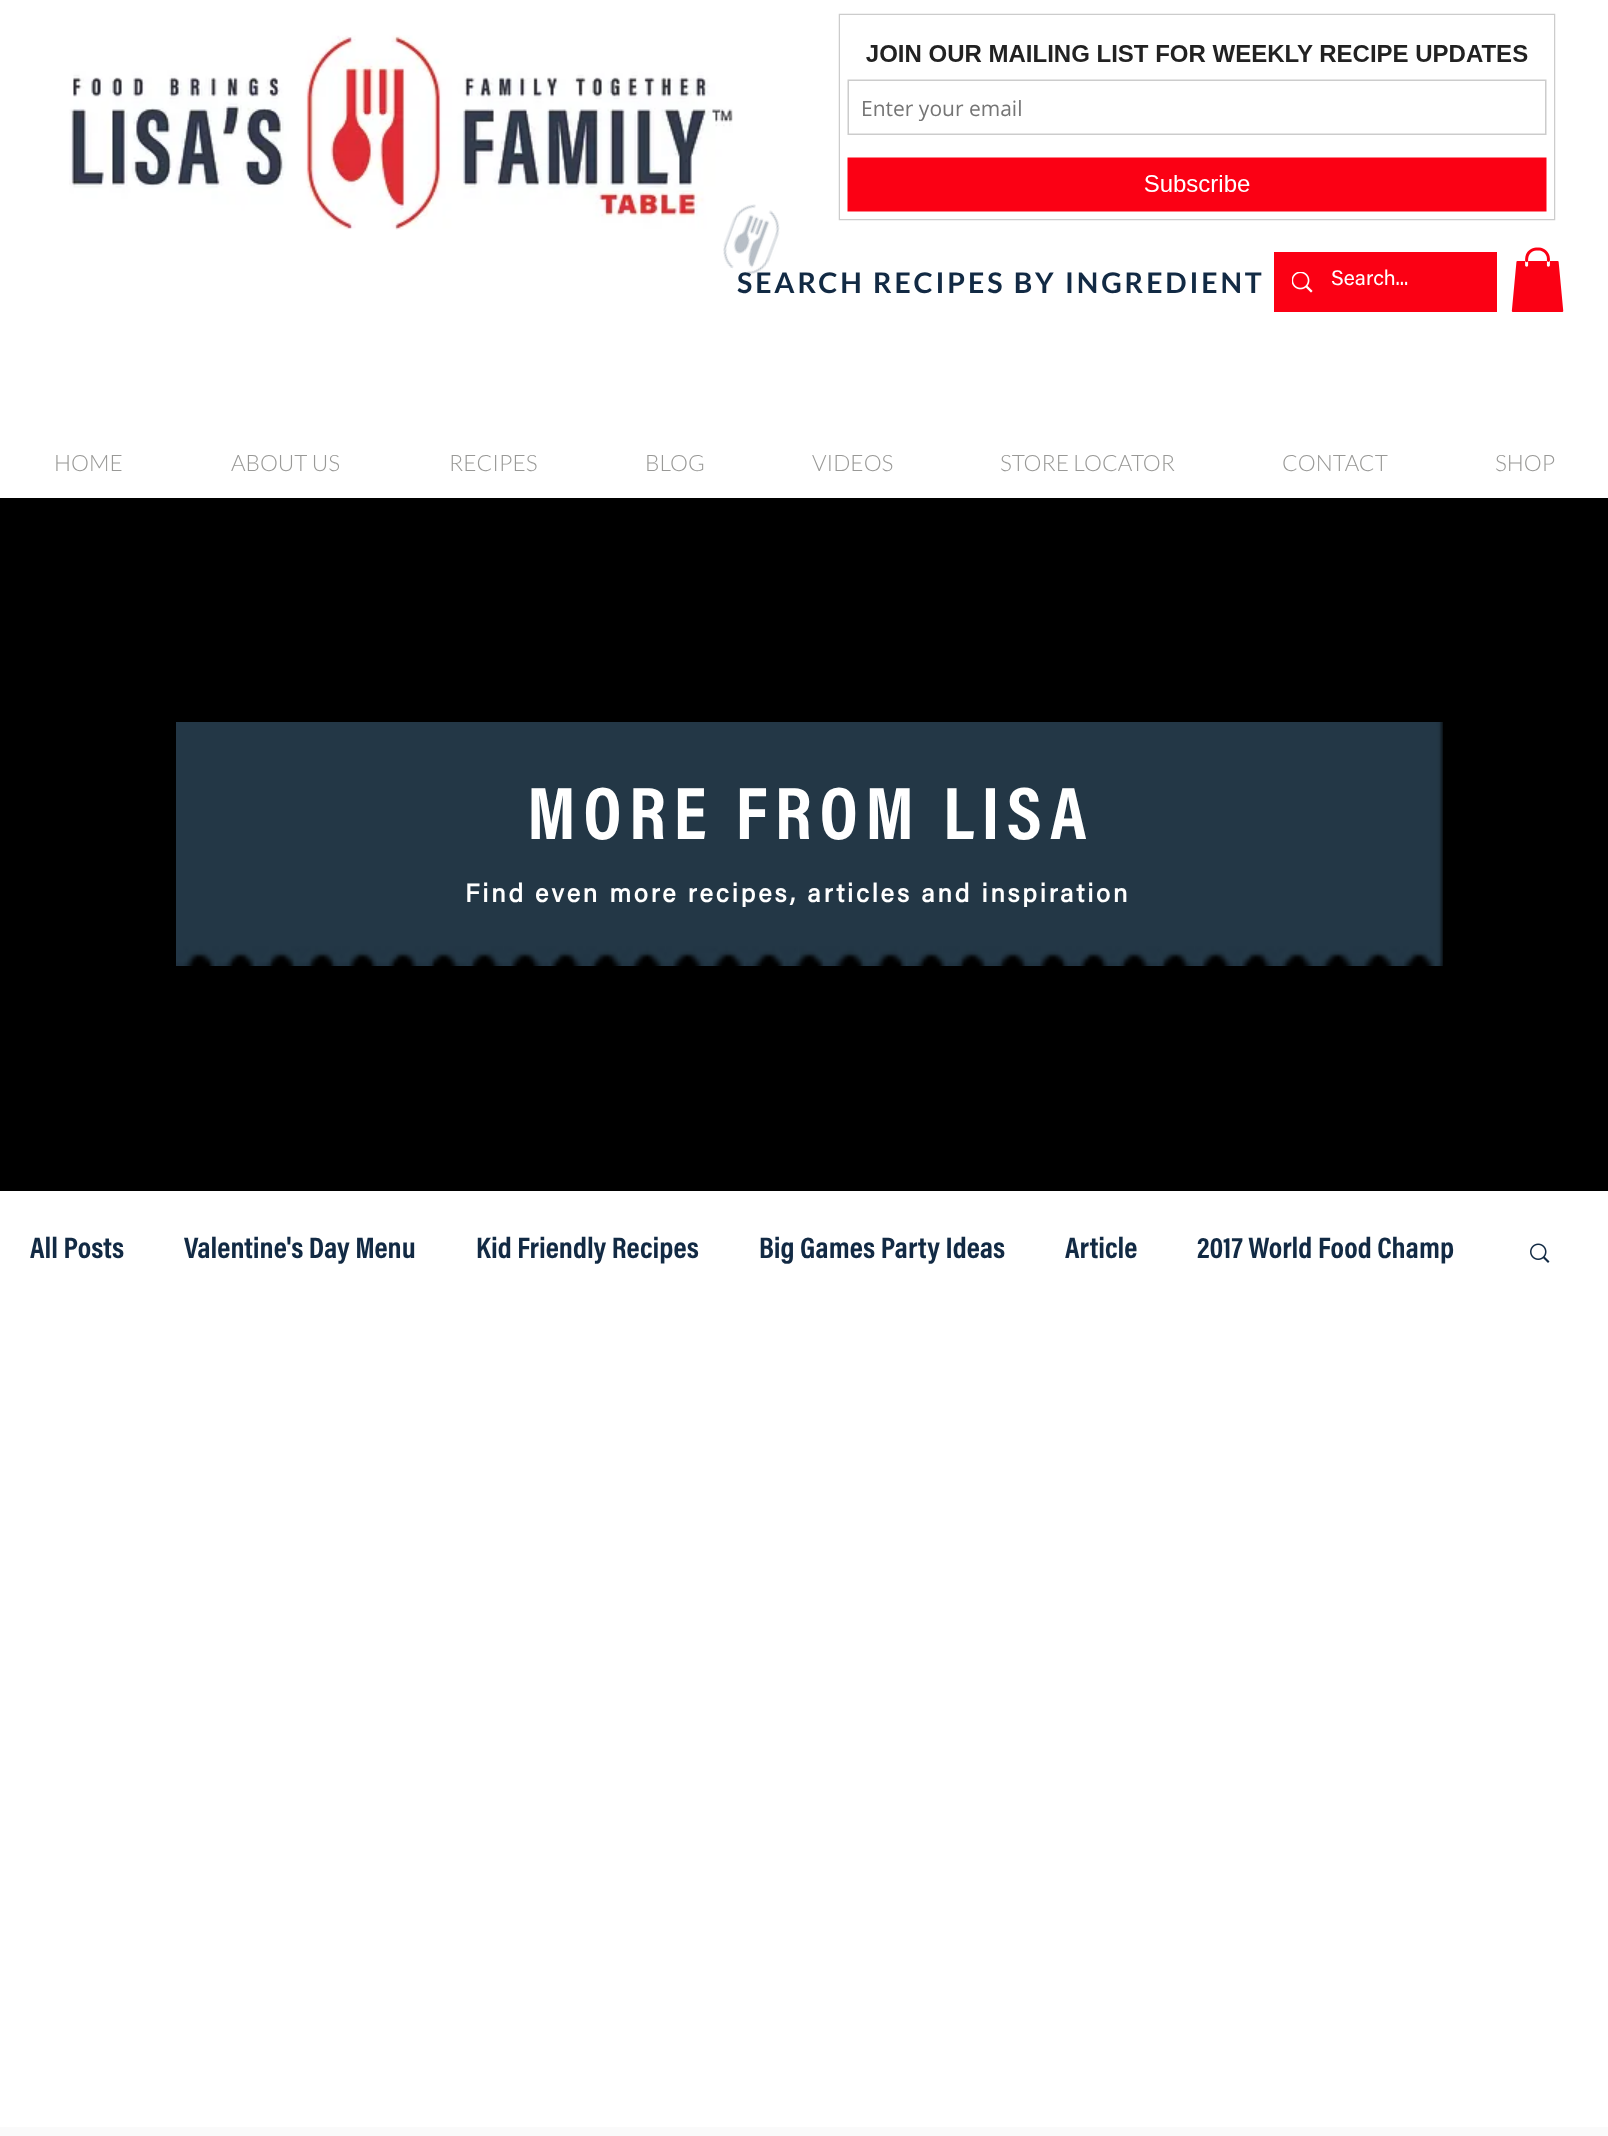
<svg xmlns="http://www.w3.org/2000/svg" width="1608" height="2136">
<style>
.a{font:21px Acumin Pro;fill:#fff}
.b{font:bold 28.5px Lato;letter-spacing:2.85px;fill:#122a44}
.c{font:300 22.5px Lato;fill:#999997}
.d{font:bold 75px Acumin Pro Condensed;letter-spacing:7.5px;fill:#fff}
.e{font:bold 25.5px Acumin Pro;letter-spacing:2.85px;fill:#fff}
.f{font:bold 30px Acumin Pro Condensed;fill:#122a44}
</style>
<rect width="100%" height="100%" fill="#fff"/>
<image href="1.png" x="69" y="35" width="664" height="195"/>
<image href="2.png" x="838" y="13" width="718" height="208"/>
<path fill="#fb0014" d="M1274 252h223v60H1274z"/>
<image href="4.png" x="1292" y="272" width="21" height="21"/>
<image href="5.png" x="1511" y="247" width="53" height="65"/>
<path fill="#000" d="M0 498h1608v693H0z"/>
<image href="6.png" x="176" y="722" width="1267" height="244"/>
<image href="7.png" x="1530" y="1243" width="20" height="20"/>
<path fill="#fafafa" d="M0 2127h1608v9H0z"/>
<text class="a" x="1331" y="285">Search...</text>
<text class="b" x="737" y="293">SEARCH RECIPES BY INGREDIENT</text>
<image href="3.png" x="723" y="204" width="57" height="71"/>
<text class="c" x="54" y="471">HOME</text>
<text class="c" x="231" y="471">ABOUT US</text>
<text class="c" x="449" y="471">RECIPES</text>
<text class="c" x="645" y="471">BLOG</text>
<text class="c" x="812" y="471">VIDEOS</text>
<text class="c" x="1000" y="471">STORE LOCATOR</text>
<text class="c" x="1282" y="471">CONTACT</text>
<text class="c" x="1495" y="471">SHOP</text>
<text class="d" x="527" y="839">MORE FROM LISA</text>
<text class="e" x="465" y="902">Find even more recipes, articles and inspiration</text>
<text class="f" x="30" y="1258">All Posts</text>
<text class="f" x="184" y="1258">Valentine's Day Menu</text>
<text class="f" x="476" y="1258">Kid Friendly Recipes</text>
<text class="f" x="759" y="1258">Big Games Party Ideas</text>
<text class="f" x="1065" y="1258">Article</text>
<text class="f" x="1197" y="1258">2017 World Food Champ</text>
</svg>
